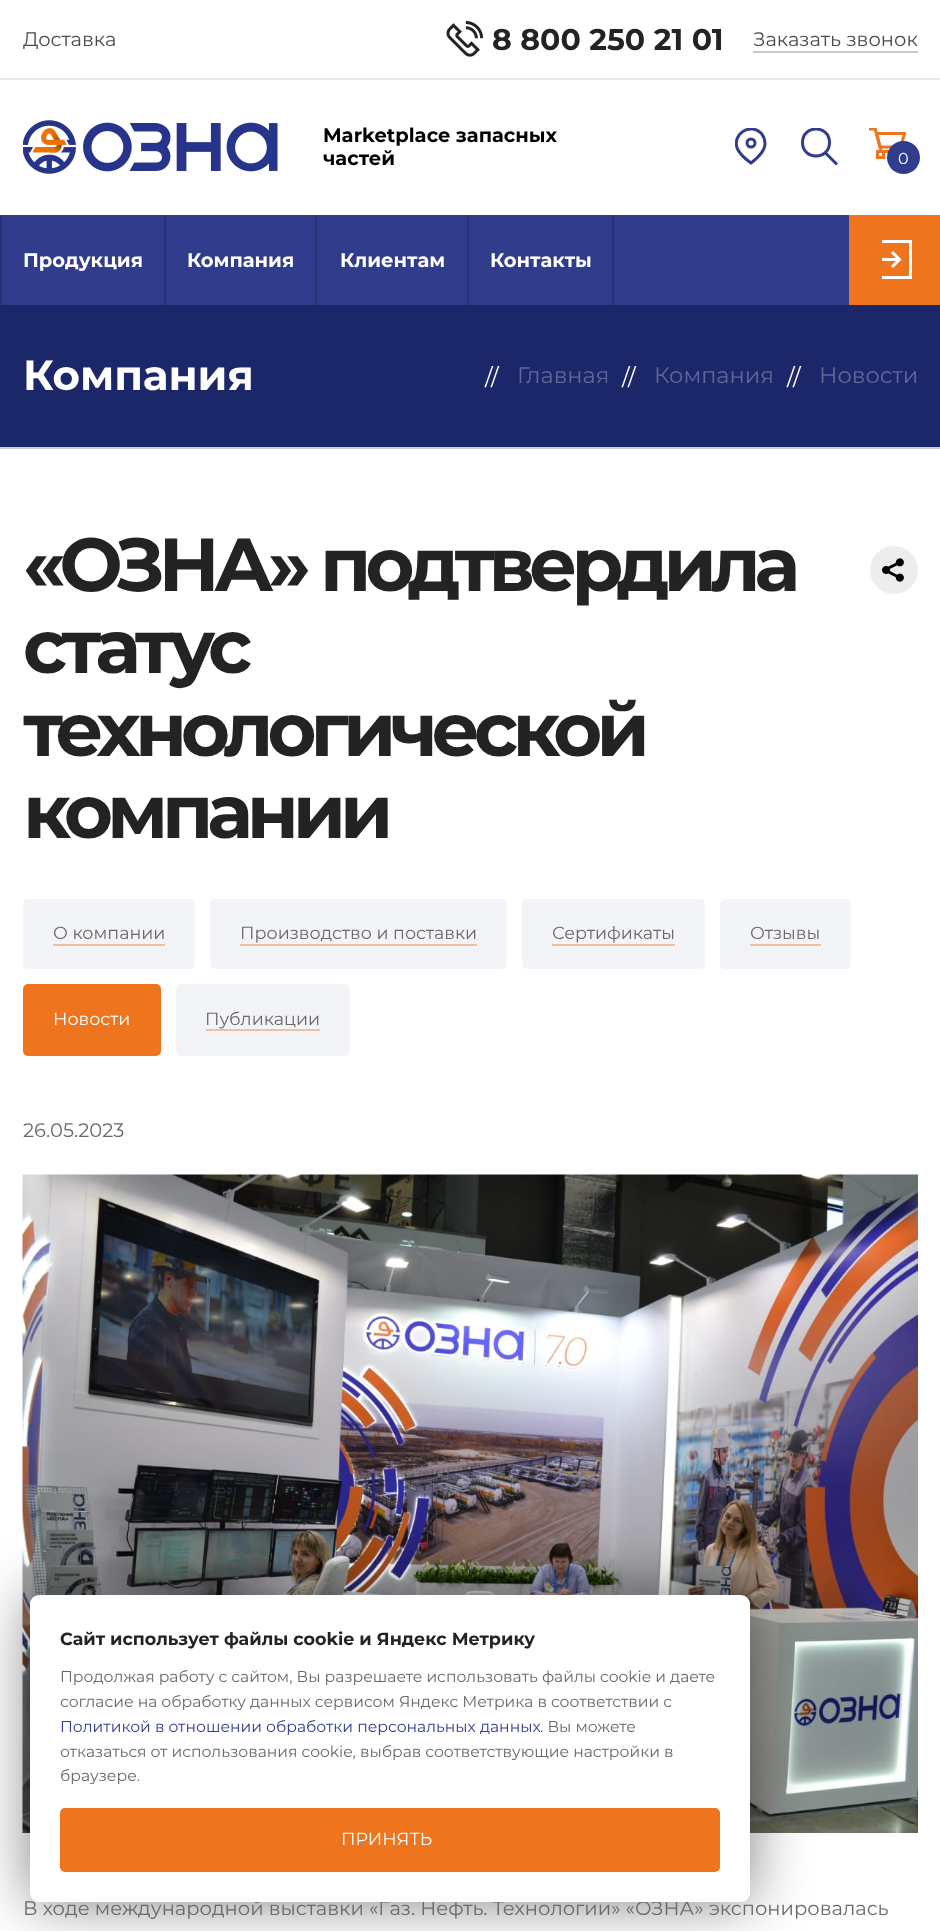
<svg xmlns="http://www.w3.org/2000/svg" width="940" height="1931">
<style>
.a{font:19.5px Montserrat;fill:#4a4a4f}
.b{font:bold 30px Montserrat;fill:#232323}
.c{font:bold 19.5px Montserrat;fill:#000}
.d{font:16px Montserrat;fill:#fff}
.e{font:bold 19.5px Montserrat;fill:#fff}
.f{font:bold 42px Montserrat;fill:#fff}
.g{font:22.5px Montserrat;fill:#fff}
.h{font:22.5px Montserrat;fill:#606897}
.i{font:bold 75px Montserrat;letter-spacing:-6px;fill:#232323}
.j{font:17.55px Montserrat;fill:#696969}
.k{font:17.55px Montserrat;fill:#fff}
.l{font:19.5px Montserrat;fill:#696969}
.m{font:bold 17.55px Montserrat;fill:#232323}
.n{font:15.6px Montserrat;fill:#696969}
.o{font:15.6px Montserrat;fill:#323c8d}
</style>
<defs>
<clipPath id="clip1"><path d="M735 128h32v37H735z"/></clipPath>
<clipPath id="clip2"><path d="M800 128h39v39H800z"/></clipPath>
</defs>
<rect width="100%" height="100%" fill="#fff"/>
<path fill="#e7e7e7" d="M0 78h940v2H0z"/>
<image href="1.png" x="446" y="21" width="38" height="36"/>
<path fill="#c9c9ca" d="M753 51h165v2H753z"/>
<image href="2.png" x="23" y="120" width="255" height="54"/>
<g clip-path="url(#clip1)">
<path fill="none" stroke="#323c8d" stroke-width="3" d="M765 143.5c0 8.5-8 15-14 19.5c-5-3.5-10.5-8-13.5-14c-6-14 12-27 23.5-16c2.5 3 4 6.5 4 10.5z"/>
</g>
<circle fill="none" stroke="#323c8d" stroke-width="3" cx="751" cy="143" r="4"/>
<g clip-path="url(#clip2)">
<path fill="none" stroke="#323c8d" stroke-width="3" stroke-linecap="round" d="M829.5 142.5c0 18-27 18-27 0c0-18 27-18 27 0z"/>
</g>
<path fill="none" stroke="#323c8d" stroke-width="3" d="M824.5 152l12.5 12.5"/>
<image href="3.png" x="869" y="128" width="38" height="31"/>
<circle fill="#323c8d" cx="903.5" cy="157.5" r="16.5"/>
<path fill="#323c8d" d="M2 215h847v90H2z"/>
<path fill="#283071" d="M0 215h2v90H0z"/>
<path fill="#283071" d="M164 215h2v90H164z"/>
<path fill="#283071" d="M315 215h2v90H315z"/>
<path fill="#283071" d="M467 215h2v90H467z"/>
<path fill="#283071" d="M612 215h2v90H612z"/>
<path fill="#ee741d" d="M849 215h91v90H849z"/>
<path fill="none" stroke="#fff" stroke-width="3" d="M882 241.5h28.5v36h-28.5m10-25.5l7.5 7.5l-7.5 7.5"/>
<path fill="#fff" d="M882 258h17v3H882z"/>
<path fill="#1c276a" d="M0 305h940v142H0z"/>
<path fill="#cdcdcd" d="M0 447h940v2H0z"/>
<circle fill="#ededed" cx="894" cy="570" r="24"/>
<image href="4.png" x="882" y="558" width="22" height="24"/>
<rect fill="#f2f4f8" x="23" y="899" width="172" height="70" rx="5"/>
<path fill="#f0c1a0" d="M53 944h112v2H53z"/>
<rect fill="#f2f4f8" x="210" y="899" width="297" height="70" rx="5"/>
<path fill="#f0c1a0" d="M240 944h237v2H240z"/>
<rect fill="#f2f4f8" x="522" y="899" width="183" height="70" rx="5"/>
<path fill="#f0c1a0" d="M552 944h123v2H552z"/>
<rect fill="#f2f4f8" x="720" y="899" width="131" height="70" rx="5"/>
<path fill="#f0c1a0" d="M750 944h71v2H750z"/>
<rect fill="#ee741d" x="23" y="984" width="138" height="72" rx="5"/>
<rect fill="#f2f4f8" x="176" y="984" width="174" height="72" rx="5"/>
<path fill="#f0c1a0" d="M206 1029h114v2H206z"/>
<image href="5.png" x="22" y="1174" width="896" height="659"/>
<rect fill="#00000080" filter="blur(30px)" x="30" y="1595" width="720" height="307" rx="9"/>
<text class="a" x="23" y="46">Доставка</text>
<text class="b" x="492" y="50">8 800 250 21 01</text>
<text class="a" x="753" y="46">Заказать звонок</text>
<text class="c" x="323" y="142">Marketplace запасных</text>
<text class="c" x="323" y="165">частей</text>
<text class="d" x="898" y="164">0</text>
<text class="e" x="23" y="267">Продукция</text>
<text class="e" x="187" y="267">Компания</text>
<text class="e" x="340" y="267">Клиентам</text>
<text class="e" x="490" y="267">Контакты</text>
<text class="f" x="23" y="390">Компания</text>
<text class="g" x="485" y="385">//</text>
<text class="h" x="517" y="383">Главная</text>
<text class="g" x="622" y="385">//</text>
<text class="h" x="654" y="383">Компания</text>
<text class="g" x="787" y="385">//</text>
<text class="h" x="819" y="383">Новости</text>
<text class="i" x="23" y="591">«ОЗНА» подтвердила</text>
<text class="i" x="23" y="673">статус</text>
<text class="i" x="23" y="756">технологической</text>
<text class="i" x="23" y="838">компании</text>
<text class="j" x="53" y="939">О компании</text>
<text class="j" x="240" y="939">Производство и поставки</text>
<text class="j" x="552" y="939">Сертификаты</text>
<text class="j" x="750" y="939">Отзывы</text>
<text class="k" x="53" y="1025">Новости</text>
<text class="j" x="205" y="1025">Публикации</text>
<text class="l" x="23" y="1137">26.05.2023</text>
<text class="l" x="23" y="1915">В ходе международной выставки «Газ. Нефть. Технологии» «ОЗНА» экспонировалась</text>
<rect fill="#fff" x="30" y="1595" width="720" height="307" rx="9"/>
<text class="m" x="60" y="1645">Сайт использует файлы cookie и Яндекс Метрику</text>
<text class="n" x="60" y="1682">Продолжая работу с сайтом, Вы разрешаете использовать файлы cookie и даете</text>
<text class="n" x="60" y="1707">согласие на обработку данных сервисом Яндекс Метрика в соответствии с</text>
<text class="o" x="60" y="1732">Политикой в отношении обработки персональных данных</text>
<text class="n" x="540" y="1732">. Вы можете</text>
<text class="n" x="60" y="1757">отказаться от использования cookie, выбрав соответствующие настройки в</text>
<text class="n" x="60" y="1781">браузере.</text>
<rect fill="#ee741d" x="60" y="1808" width="660" height="64" rx="5"/>
<text class="k" x="341" y="1845">ПРИНЯТЬ</text>
</svg>
